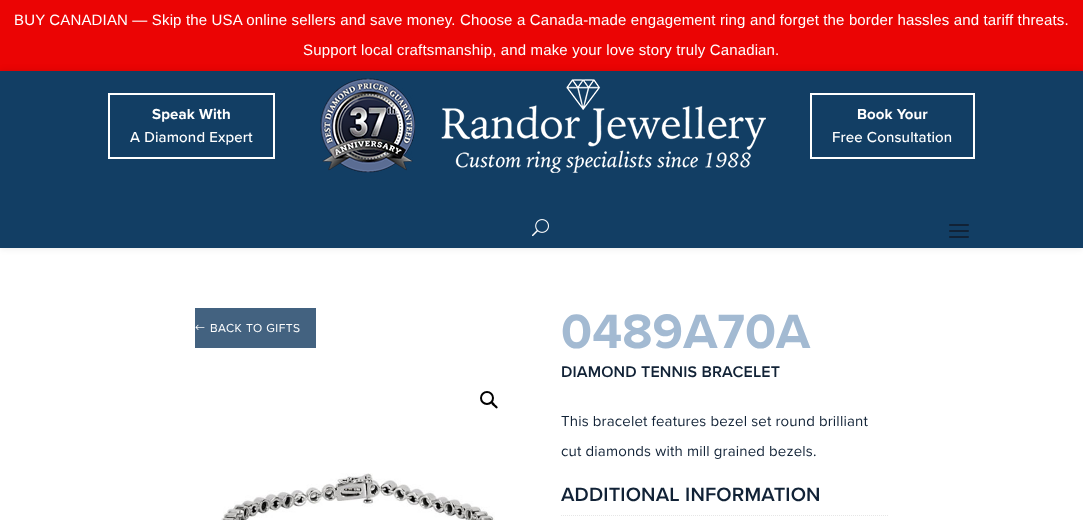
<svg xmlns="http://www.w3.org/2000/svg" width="1083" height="520">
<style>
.a{font:15px Liberation Sans;letter-spacing:0.15px;fill:#fff}
.b{font:bold 15px Proxima Nova;letter-spacing:0.15px;fill:#fff}
.c{font:500 15px Proxima Nova;letter-spacing:0.15px;fill:#fff}
.d{font:12px Proxima Nova;letter-spacing:0.5px;fill:#fff}
.e{font:bold 50px Proxima Nova;letter-spacing:0.15px;fill:#a3bad2}
.f{font:600 16px Proxima Nova;letter-spacing:0.15px;fill:#112236}
.g{font:15px Proxima Nova;letter-spacing:0.15px;fill:#112236}
.h{font:600 20px Proxima Nova;letter-spacing:0.15px;fill:#112236}
</style>
<rect width="100%" height="100%" fill="#fff"/>
<path fill="#eb0404" d="M0 0h1083v71H0z"/>
<path fill="#0000001a" filter="blur(3.5px)" d="M0 71h1083v177H0z"/>
<path fill="#123e64" d="M0 71h1083v177H0z"/>
<path fill="none" stroke="#fff" stroke-width="2" d="M109 94h165v64H109z"/>
<image href="1.png" x="320" y="78" width="446" height="95"/>
<path fill="none" stroke="#fff" stroke-width="2" d="M811 94h163v64H811z"/>
<image href="2.png" x="532" y="219" width="17" height="18"/>
<image href="3.png" x="949" y="224" width="20" height="14"/>
<path fill="#436280" d="M195 308h121v40H195z"/>
<image href="4.png" x="195" y="324" width="10" height="6"/>
<circle fill="none" stroke="#000" stroke-width="2" cx="487" cy="398" r="6"/>
<path fill="#000" d="M491.5 402.5c1.5-1.5 3 1.5 3.5 2c.5 .5 3.5 2.5 2.5 3.5c-1.5 1.5-3-1.5-4-2c-.5-.5-3-2.5-2-3.5z"/>
<image href="5.png" x="221" y="473" width="274" height="47"/>
<path fill="none" stroke="#e6e6e6" stroke-dasharray="1 1" d="M561 515.5h327"/>
<text class="a" x="14" y="25">BUY CANADIAN — Skip the USA online sellers and save money. Choose a Canada-made engagement ring and forget the border hassles and tariff threats.</text>
<text class="a" x="303" y="55">Support local craftsmanship, and make your love story truly Canadian.</text>
<text class="b" x="152" y="119">Speak With</text>
<text class="c" x="130" y="142">A Diamond Expert</text>
<text class="b" x="857" y="119">Book Your</text>
<text class="c" x="832" y="142">Free Consultation</text>
<text class="d" x="210" y="332">BACK TO GIFTS</text>
<text class="e" x="561" y="348">0489A70A</text>
<text class="f" x="561" y="377">DIAMOND TENNIS BRACELET</text>
<text class="g" x="561" y="426">This bracelet features bezel set round brilliant</text>
<text class="g" x="561" y="456">cut diamonds with mill grained bezels.</text>
<text class="h" x="561" y="501">ADDITIONAL INFORMATION</text>
</svg>
